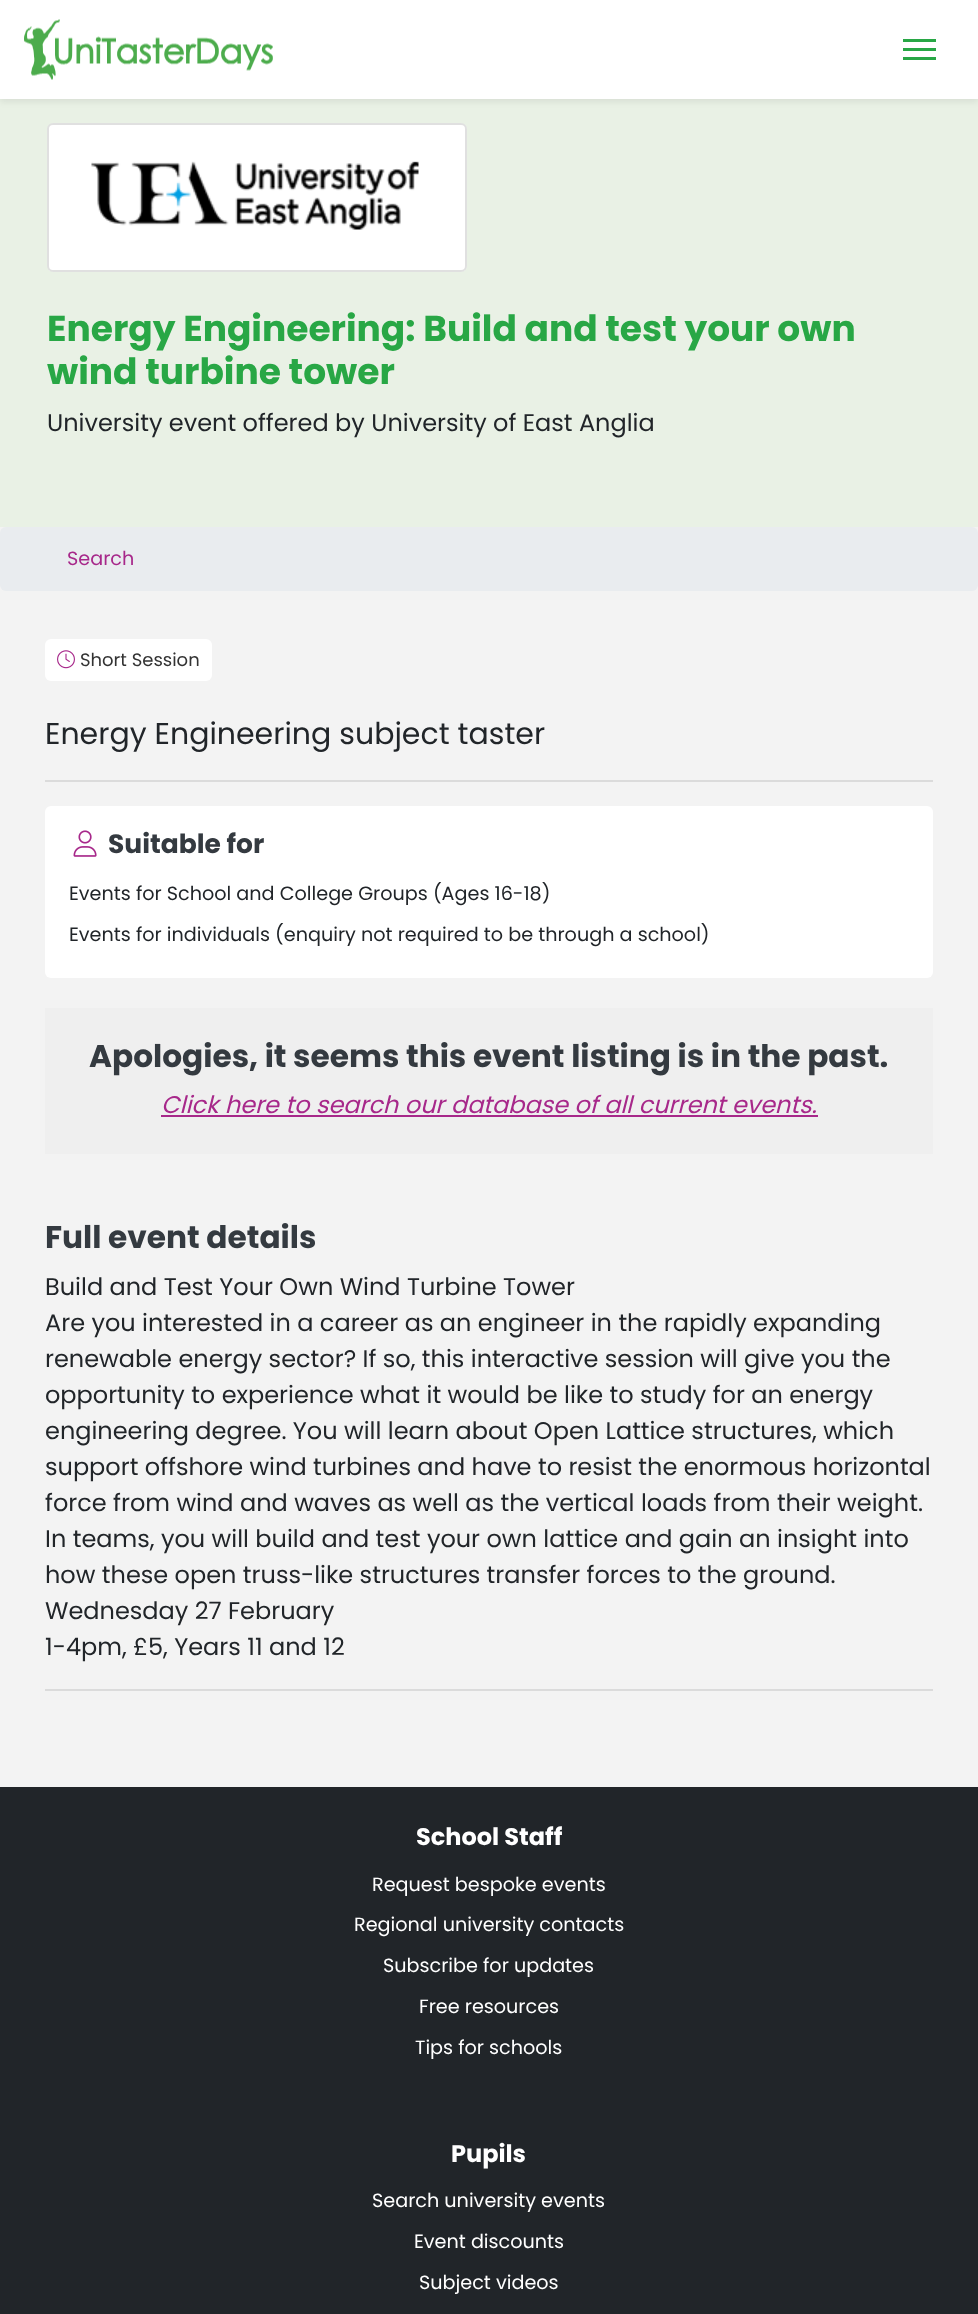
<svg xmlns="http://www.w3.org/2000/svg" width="978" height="2314">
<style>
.a{font:bold 36px Poppins;fill:#28a745}
.b{font:24px Poppins;fill:#212529}
.c{font:19.2px Poppins;fill:#a7288a}
.d{font:18px Poppins;fill:#333}
.e{font:30px Poppins;fill:#212529}
.f{font:bold 26.5px Poppins;fill:#343a40}
.g{font:19.2px Poppins;fill:#212529}
.h{font:bold 31.2px Poppins;fill:#343a40}
.i{font:italic 24px Poppins;fill:#a7288a}
.j{font:bold 24px Poppins;fill:#fff}
.k{font:19.2px Poppins;fill:#fff}
</style>
<rect width="100%" height="100%" fill="#f3f3f3"/>
<path fill="#e9f1e5" d="M0 99h978v428H0z"/>
<path fill="#00000012" filter="blur(3px)" d="M0 3h978v99H0z"/>
<path fill="#fff" d="M0 0h978v99H0z"/>
<image href="1.png" x="24" y="19" width="249" height="61"/>
<path fill="#28a745" d="M903 39h33v3H903z"/>
<path fill="#28a745" d="M903 48h33v3H903z"/>
<path fill="#28a745" d="M903 57h33v3H903z"/>
<rect fill="#fff" x="47" y="123" width="420" height="149" rx="6"/>
<rect fill="none" stroke="#0000001f" stroke-width="2" x="48" y="124" width="418" height="147" rx="5"/>
<image href="2.png" x="91" y="161" width="328" height="69"/>
<rect fill="#e9ecef" y="527" width="978" height="64" rx="6"/>
<rect fill="#fff" x="45" y="639" width="167" height="42" rx="6"/>
<image href="3.png" x="57" y="650" width="18" height="19"/>
<path fill="#dbdbdb" d="M45 780h888v2H45z"/>
<rect fill="#fff" x="45" y="806" width="888" height="172" rx="6"/>
<image href="4.png" x="73" y="830" width="24" height="27"/>
<path fill="#efefef" d="M45 1008h888v146H45z"/>
<path fill="#a7288a" d="M161 1115h657v2H161z"/>
<path fill="#dbdbdb" d="M45 1689h888v2H45z"/>
<path fill="#212529" d="M0 1787h978v527H0z"/>
<text class="a" x="47" y="341">Energy Engineering: Build and test your own</text>
<text class="a" x="47" y="384">wind turbine tower</text>
<text class="b" x="47" y="431">University event offered by University of East Anglia</text>
<text class="c" x="67" y="565">Search</text>
<text class="d" x="80" y="666">Short Session</text>
<text class="e" x="45" y="744">Energy Engineering subject taster</text>
<text class="f" x="108" y="853">Suitable for</text>
<text class="g" x="69" y="900">Events for School and College Groups (Ages 16-18)</text>
<text class="g" x="69" y="941">Events for individuals (enquiry not required to be through a school)</text>
<text class="h" x="89" y="1067">Apologies, it seems this event listing is in the past.</text>
<text class="i" x="161" y="1113">Click here to search our database of all current events.</text>
<text class="h" x="45" y="1248">Full event details</text>
<text class="b" x="45" y="1295">Build and Test Your Own Wind Turbine Tower</text>
<text class="b" x="45" y="1331">Are you interested in a career as an engineer in the rapidly expanding</text>
<text class="b" x="45" y="1367">renewable energy sector? If so, this interactive session will give you the</text>
<text class="b" x="45" y="1403">opportunity to experience what it would be like to study for an energy</text>
<text class="b" x="45" y="1439">engineering degree. You will learn about Open Lattice structures, which</text>
<text class="b" x="45" y="1475">support offshore wind turbines and have to resist the enormous horizontal</text>
<text class="b" x="45" y="1511">force from wind and waves as well as the vertical loads from their weight.</text>
<text class="b" x="45" y="1547">In teams, you will build and test your own lattice and gain an insight into</text>
<text class="b" x="45" y="1583">how these open truss-like structures transfer forces to the ground.</text>
<text class="b" x="45" y="1619">Wednesday 27 February</text>
<text class="b" x="45" y="1655">1-4pm, £5, Years 11 and 12</text>
<text class="j" x="416" y="1845">School Staff</text>
<text class="k" x="372" y="1891">Request bespoke events</text>
<text class="k" x="354" y="1931">Regional university contacts</text>
<text class="k" x="383" y="1972">Subscribe for updates</text>
<text class="k" x="419" y="2013">Free resources</text>
<text class="k" x="415" y="2054">Tips for schools</text>
<text class="j" x="451" y="2162">Pupils</text>
<text class="k" x="372" y="2207">Search university events</text>
<text class="k" x="414" y="2248">Event discounts</text>
<text class="k" x="419" y="2289">Subject videos</text>
</svg>
